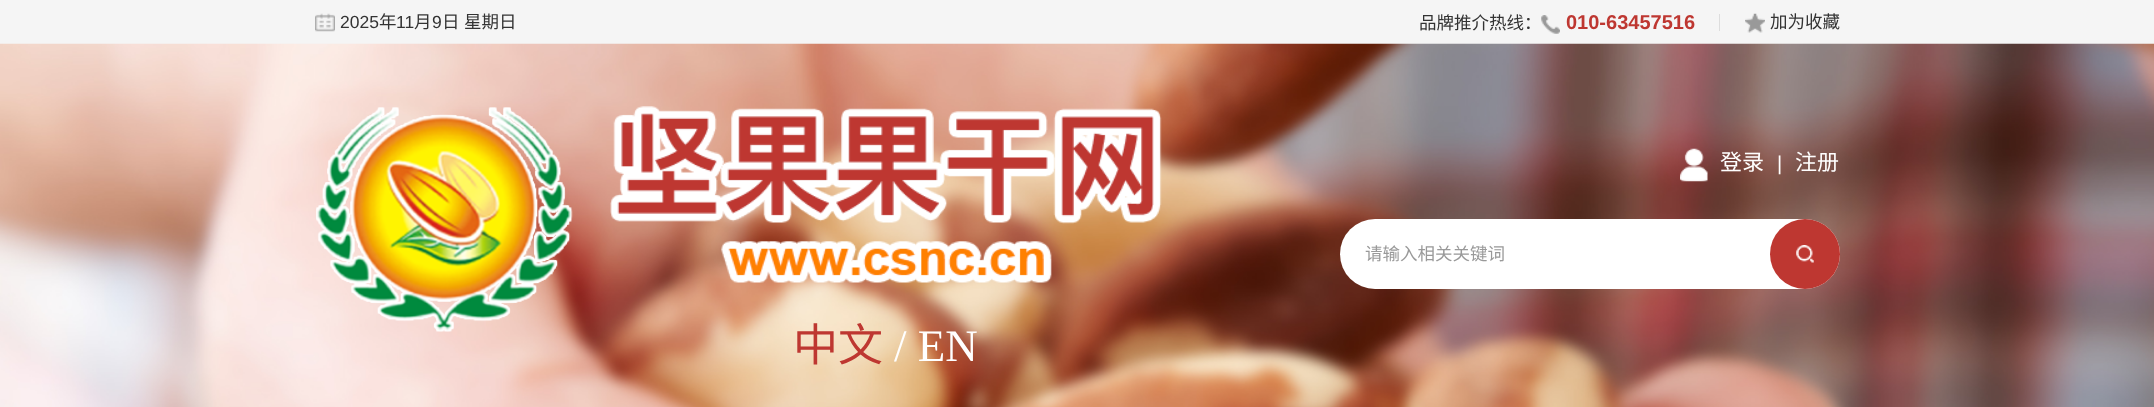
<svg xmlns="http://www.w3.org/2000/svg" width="2154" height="407">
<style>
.a{font:17.5px Liberation Sans;fill:#333}
.b{font:17.5px Noto Sans CJK SC;fill:#333}
.c{font:bold 20px Liberation Sans;fill:#be3731}
.d{font:22px Noto Sans CJK SC;fill:#fff}
.e{font:20px Liberation Sans;fill:#fff}
.f{font:17.5px Noto Sans CJK SC;fill:#999}
.g{font:45px Noto Sans CJK SC;fill:#be3731}
.h{font:45px Liberation Serif;fill:#fff}
</style>
<rect width="100%" height="100%" fill="#f5f5f5"/>
<image href="1.png" x="315" y="13" width="20" height="19"/>
<image href="2.png" x="1541" y="15" width="19" height="19"/>
<path fill="#ddd" d="M1719 14h1v17H1719z"/>
<image href="3.png" x="1745" y="13" width="20" height="20"/>
<image href="4.png" x="0" y="43" width="2154" height="364"/>
<image href="5.png" x="1680" y="148" width="28" height="34"/>
<rect fill="#fff" x="1340" y="219" width="500" height="70" rx="35"/>
<circle fill="#be3731" cx="1805" cy="254" r="35"/>
<image href="6.png" x="1796" y="245" width="18" height="18"/>
<image href="7.png" x="316" y="107" width="257" height="225"/>
<image href="8.png" x="610" y="106" width="552" height="177"/>
<text class="a" x="340" y="28">2025</text>
<text class="b" x="379" y="28">年</text>
<text class="a" x="396" y="28">11</text>
<text class="b" x="414" y="28">月</text>
<text class="a" x="432" y="28">9</text>
<text class="b" x="442" y="28">日</text>
<text class="b" x="464" y="28">星期日</text>
<text class="b" x="1419" y="29">品牌推介热线：</text>
<text class="c" x="1566" y="29">010-63457516</text>
<text class="b" x="1770" y="28">加为收藏</text>
<text class="d" x="1720" y="170">登录</text>
<text class="e" x="1777" y="170">|</text>
<text class="d" x="1795" y="170">注册</text>
<text class="f" x="1365" y="260">请输入相关关键词</text>
<text class="g" x="793" y="361">中文</text>
<text class="h" x="894" y="361">/ EN</text>
</svg>
